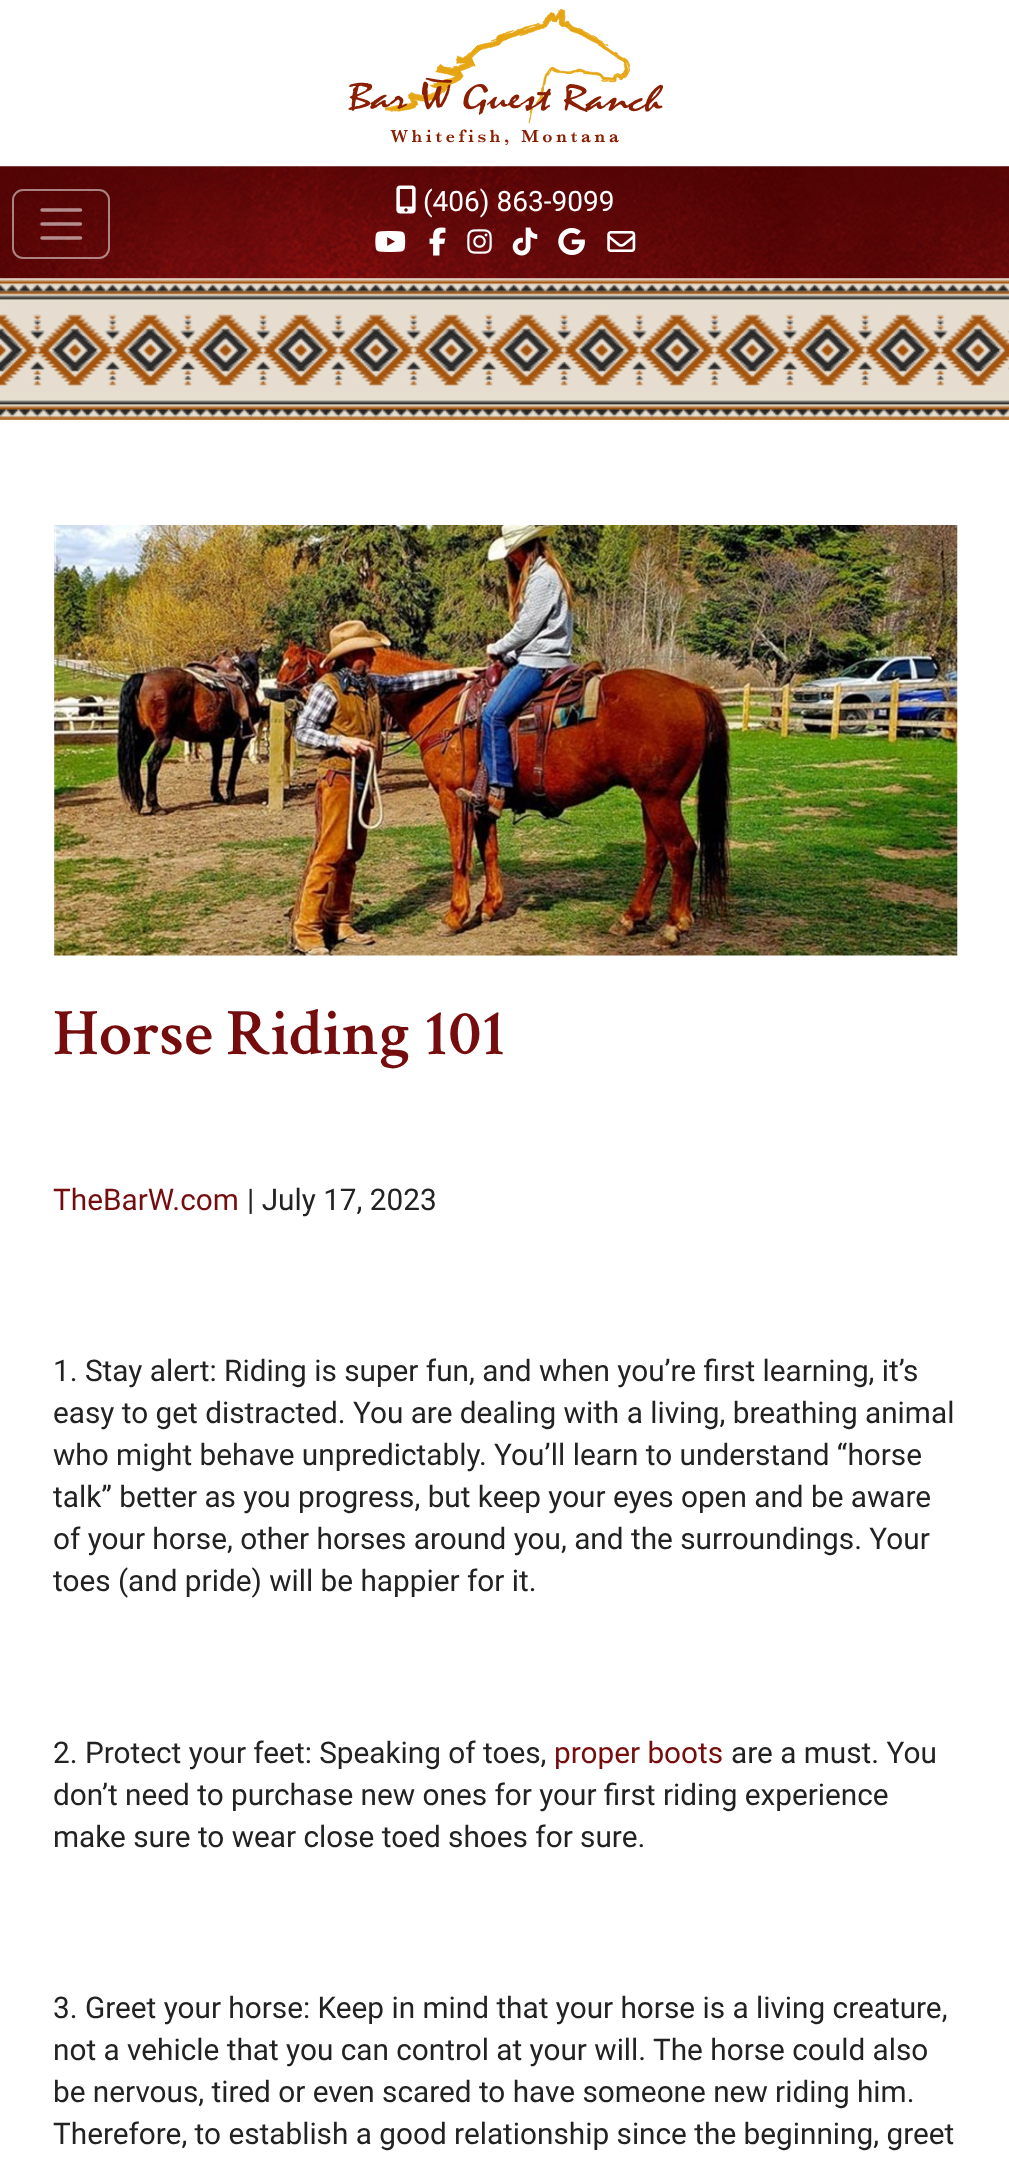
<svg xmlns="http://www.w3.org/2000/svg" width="1009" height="2158">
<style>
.a{font:28px Roboto;fill:#fff}
.b{font:600 66.5px Crimson Text;fill:#750d0e}
.c{font:29.75px Roboto;fill:#750d0e}
.d{font:29.75px Roboto;fill:#222}
</style>
<rect width="100%" height="100%" fill="#fff"/>
<image href="1.png" x="348" y="9" width="315" height="136"/>
<image href="10.png" x="0" y="278" width="1009" height="142"/>
<image href="2.png" x="0" y="166" width="1009" height="113"/>
<rect fill="none" stroke="#ffffff80" stroke-width="2" x="13" y="190" width="96" height="68" rx="10"/>
<path fill="none" stroke="#ffffff8c" stroke-width="3.5" stroke-linecap="round" d="M42 210h38.5m-38.5 14h38.5m-38.5 14h38.5"/>
<image href="3.png" x="396" y="185" width="20" height="29"/>
<image href="4.png" x="375" y="231" width="31" height="21"/>
<image href="5.png" x="429" y="227" width="17" height="29"/>
<image href="6.png" x="467" y="229" width="25" height="25"/>
<image href="7.png" x="512" y="227" width="26" height="29"/>
<image href="8.png" x="558" y="227" width="27" height="29"/>
<image href="9.png" x="607" y="231" width="29" height="21"/>
<image href="11.png" x="54" y="525" width="904" height="431"/>
<text class="a" x="423" y="211">(406) 863-9099</text>
<text class="b" x="53" y="1054">Horse Riding 101</text>
<text class="c" x="53" y="1210">TheBarW.com</text>
<text class="d" x="247" y="1210">| July 17, 2023</text>
<text class="d" x="53" y="1381">1. Stay alert: Riding is super fun, and when you’re first learning, it’s</text>
<text class="d" x="53" y="1423">easy to get distracted. You are dealing with a living, breathing animal</text>
<text class="d" x="53" y="1465">who might behave unpredictably. You’ll learn to understand “horse</text>
<text class="d" x="53" y="1507">talk” better as you progress, but keep your eyes open and be aware</text>
<text class="d" x="53" y="1549">of your horse, other horses around you, and the surroundings. Your</text>
<text class="d" x="53" y="1591">toes (and pride) will be happier for it.</text>
<text class="d" x="53" y="1763">2. Protect your feet: Speaking of toes,</text>
<text class="c" x="554" y="1763">proper boots</text>
<text class="d" x="731" y="1763">are a must. You</text>
<text class="d" x="53" y="1805">don’t need to purchase new ones for your first riding experience</text>
<text class="d" x="53" y="1847">make sure to wear close toed shoes for sure.</text>
<text class="d" x="53" y="2018">3. Greet your horse: Keep in mind that your horse is a living creature,</text>
<text class="d" x="53" y="2060">not a vehicle that you can control at your will. The horse could also</text>
<text class="d" x="53" y="2102">be nervous, tired or even scared to have someone new riding him.</text>
<text class="d" x="53" y="2144">Therefore, to establish a good relationship since the beginning, greet</text>
</svg>
